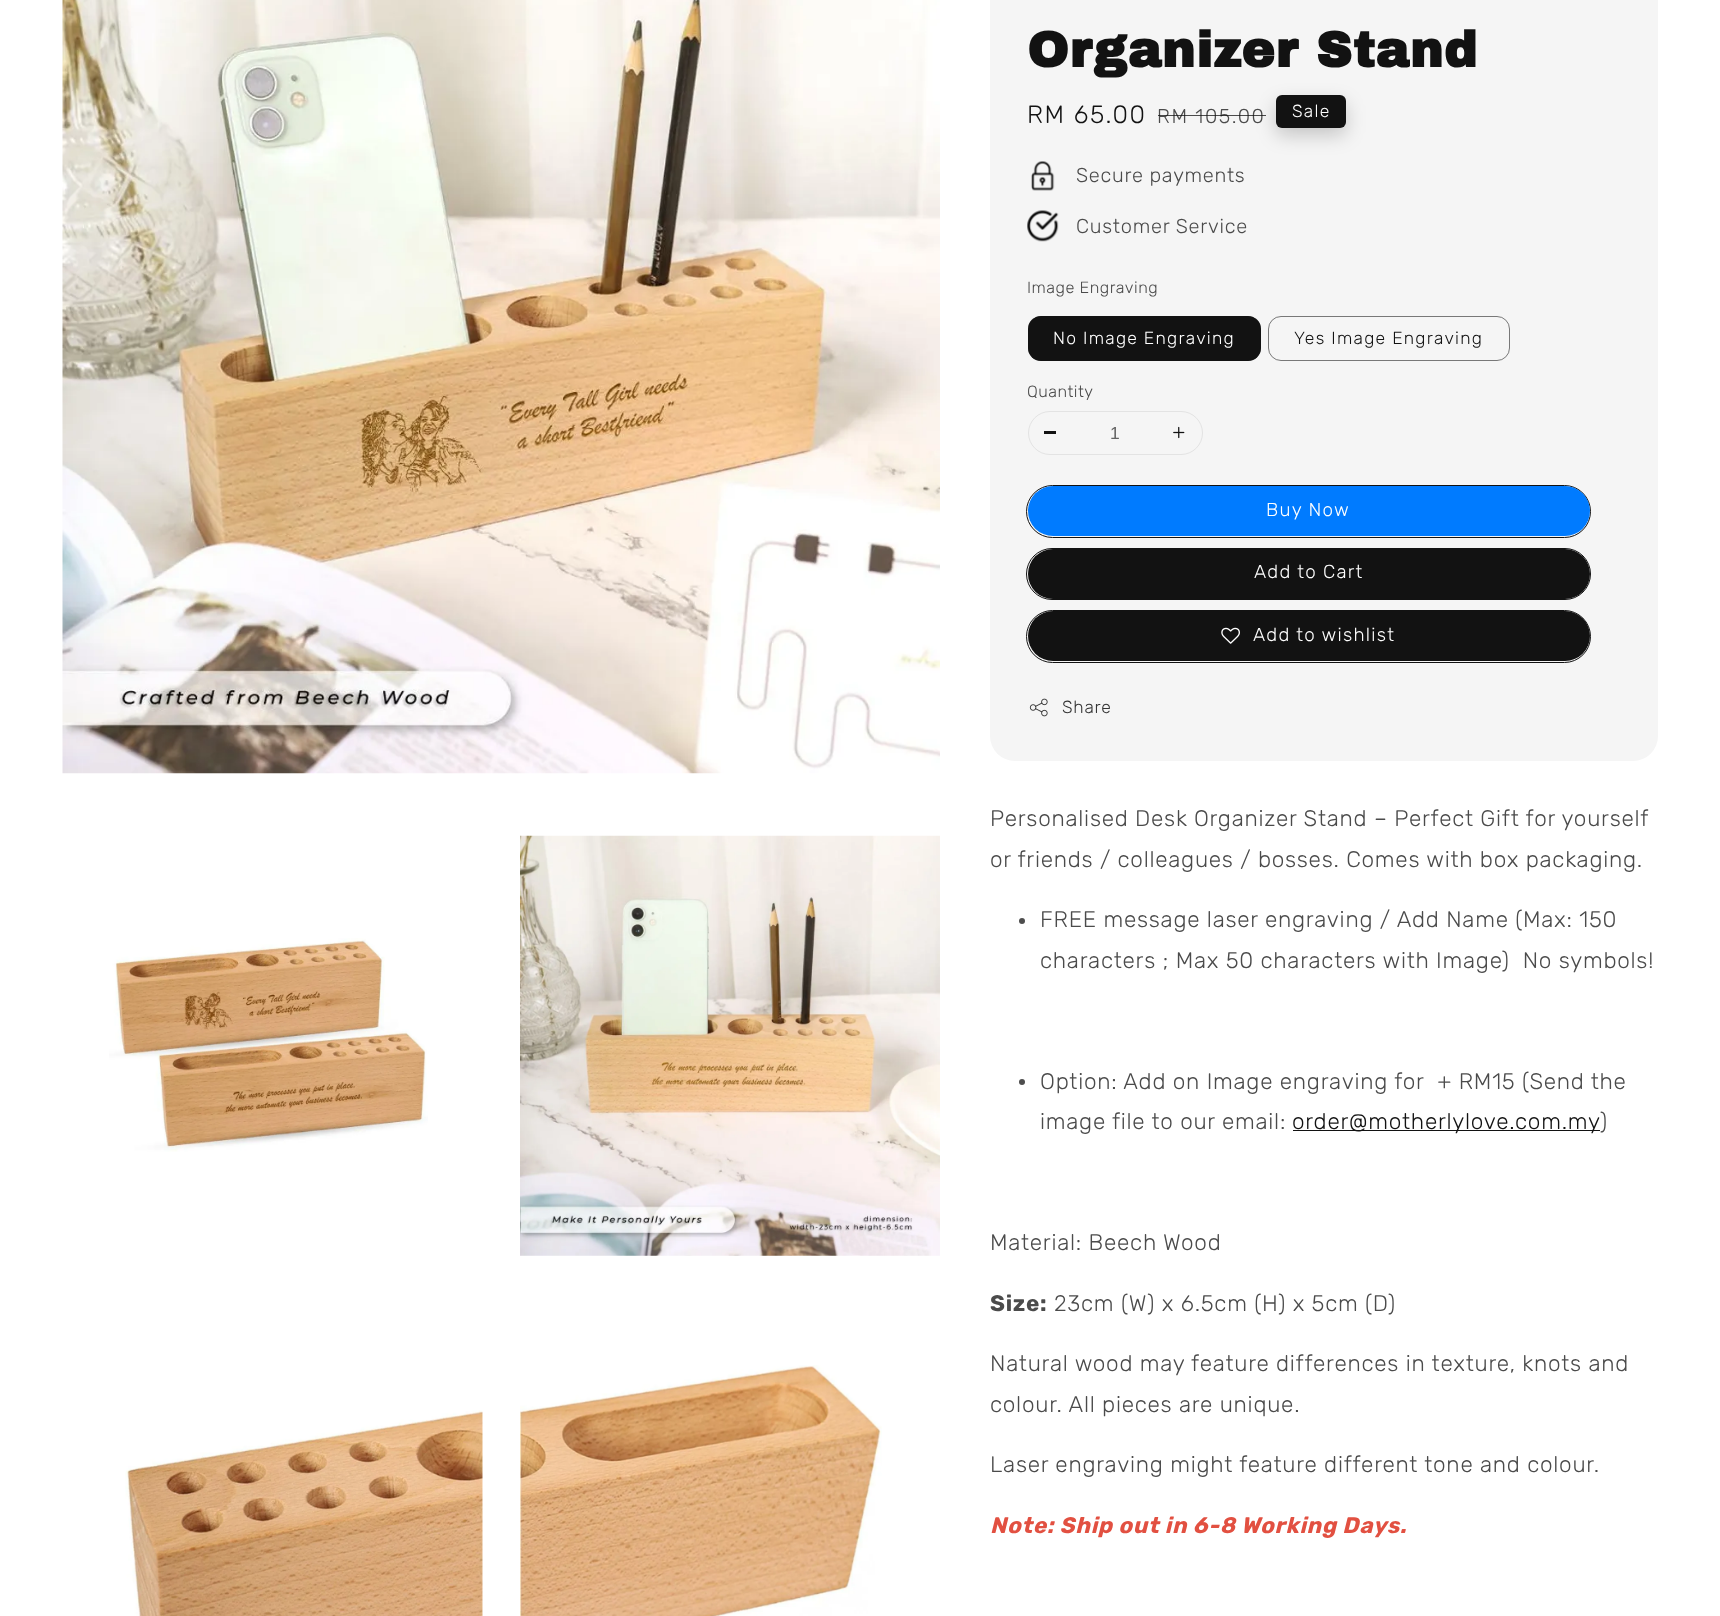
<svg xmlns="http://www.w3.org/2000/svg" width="1720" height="1616">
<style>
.a{font:bold 50px Archivo Black;letter-spacing:0.75px;fill:#121212}
.b{font:300 25px Rubik;letter-spacing:1.6px;fill:#121212}
.c{font:300 20px Rubik;letter-spacing:1.6px;fill:#4b4b4b}
.d{font:300 17.5px Rubik;letter-spacing:1.25px;fill:#fff}
.e{font:300 20px Rubik;letter-spacing:0.75px;fill:#4b4b4b}
.f{font:300 16.25px Rubik;letter-spacing:0.5px;fill:#4b4b4b}
.g{font:300 17.5px Rubik;letter-spacing:1.25px;fill:#121212}
.h{font:17.5px Liberation Sans;fill:#646464}
.i{font:300 18.75px Rubik;letter-spacing:1.25px;fill:#fff}
.j{font:300 17.5px Rubik;letter-spacing:0.75px;fill:#343434}
.k{font:300 22.5px Rubik;letter-spacing:0.75px;fill:#4b4b4b}
.l{font:300 22.5px Rubik;letter-spacing:0.75px;fill:#121212}
.m{font:bold 22.5px Rubik;letter-spacing:0.75px;fill:#4b4b4b}
.n{font:italic bold 22.5px Rubik;letter-spacing:0.75px;fill:#e25041}
</style>
<rect width="100%" height="100%" fill="#fff"/>
<image href="1.png" x="62" y="0" width="878" height="774"/>
<image href="2.png" x="109" y="938" width="319" height="214"/>
<image href="3.png" x="520" y="835" width="420" height="421"/>
<image href="4.png" x="125" y="1410" width="358" height="206"/>
<image href="5.png" x="520" y="1365" width="362" height="251"/>
<rect fill="#f5f5f5" x="990" y="-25" width="668" height="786" rx="25"/>
<image href="6.png" x="1031" y="161" width="24" height="30"/>
<image href="7.png" x="1027" y="210" width="32" height="32"/>
<rect fill="#121212" x="1028" y="316" width="233" height="45" rx="13"/>
<rect fill="none" stroke="#1212128c" x="1028.5" y="316.5" width="232" height="44" rx="12.5"/>
<rect fill="none" stroke="#787878" x="1268.5" y="316.5" width="241" height="44" rx="12.5"/>
<rect fill="none" stroke="#e3e3e3" x="1028.5" y="411.5" width="174" height="43" rx="21.5"/>
<path fill="#121212" d="M1044 431h12v3H1044z"/>
<image href="8.png" x="1173" y="426" width="12" height="13"/>
<rect fill="none" stroke="#121212" x="1026.5" y="485.5" width="564" height="52" rx="26"/>
<rect fill="#007bff" x="1028" y="486" width="562" height="50" rx="25"/>
<rect fill="none" stroke="#121212" x="1026.5" y="548.5" width="564" height="51" rx="25.5"/>
<rect fill="#121212" x="1028" y="549" width="562" height="50" rx="25"/>
<rect fill="none" stroke="#121212" x="1026.5" y="610.5" width="564" height="52" rx="26"/>
<rect fill="#121212" x="1028" y="611" width="562" height="50" rx="25"/>
<image href="9.png" x="1221" y="627" width="19" height="17"/>
<image href="10.png" x="1029" y="698" width="19" height="19"/>
<circle fill="#4d4d4d" cx="1022" cy="921" r="3"/>
<circle fill="#4d4d4d" cx="1022" cy="1082" r="3"/>
<path fill="#121212" d="M1293 1130h307v1H1293z"/>
<text class="a" x="1027" y="67">Organizer Stand</text>
<text class="b" x="1027" y="123">RM 65.00</text>
<text class="c" x="1157" y="123">RM 105.00</text>
<path fill="#121212bf" d="M1158 115h108v1H1158z"/>
<rect fill="#00000033" filter="blur(9.5px)" x="1276" y="103" width="70" height="32" rx="6"/>
<rect fill="#121212" x="1276" y="95" width="70" height="33" rx="6"/>
<text class="d" x="1292" y="117">Sale</text>
<text class="e" x="1076" y="182">Secure payments</text>
<text class="e" x="1076" y="233">Customer Service</text>
<text class="f" x="1027" y="293">Image Engraving</text>
<text class="d" x="1053" y="344">No Image Engraving</text>
<text class="g" x="1294" y="344">Yes Image Engraving</text>
<text class="f" x="1027" y="397">Quantity</text>
<text class="h" x="1110" y="439">1</text>
<text class="i" x="1266" y="516">Buy Now</text>
<text class="i" x="1254" y="578">Add to Cart</text>
<text class="i" x="1253" y="641">Add to wishlist</text>
<text class="j" x="1062" y="713">Share</text>
<text class="k" x="990" y="826">Personalised Desk Organizer Stand – Perfect Gift for yourself</text>
<text class="k" x="990" y="867">or friends / colleagues / bosses. Comes with box packaging.</text>
<text class="k" x="1040" y="927">FREE message laser engraving / Add Name (Max: 150</text>
<text class="k" xml:space="preserve" x="1040" y="968">characters ; Max 50 characters with Image)  No symbols!</text>
<text class="k" xml:space="preserve" x="1040" y="1089">Option: Add on Image engraving for  + RM15 (Send the</text>
<text class="k" x="1040" y="1129">image file to our email:</text>
<text class="l" x="1292" y="1129">order@motherlylove.com.my</text>
<text class="k" x="1600" y="1129">)</text>
<text class="k" x="990" y="1250">Material: Beech Wood</text>
<text class="m" x="990" y="1311">Size:</text>
<text class="k" x="1054" y="1311">23cm (W) x 6.5cm (H) x 5cm (D)</text>
<text class="k" x="990" y="1371">Natural wood may feature differences in texture, knots and</text>
<text class="k" x="990" y="1412">colour. All pieces are unique.</text>
<text class="k" x="990" y="1472">Laser engraving might feature different tone and colour.</text>
<text class="n" x="990" y="1533">Note: Ship out in 6-8 Working Days.</text>
</svg>
